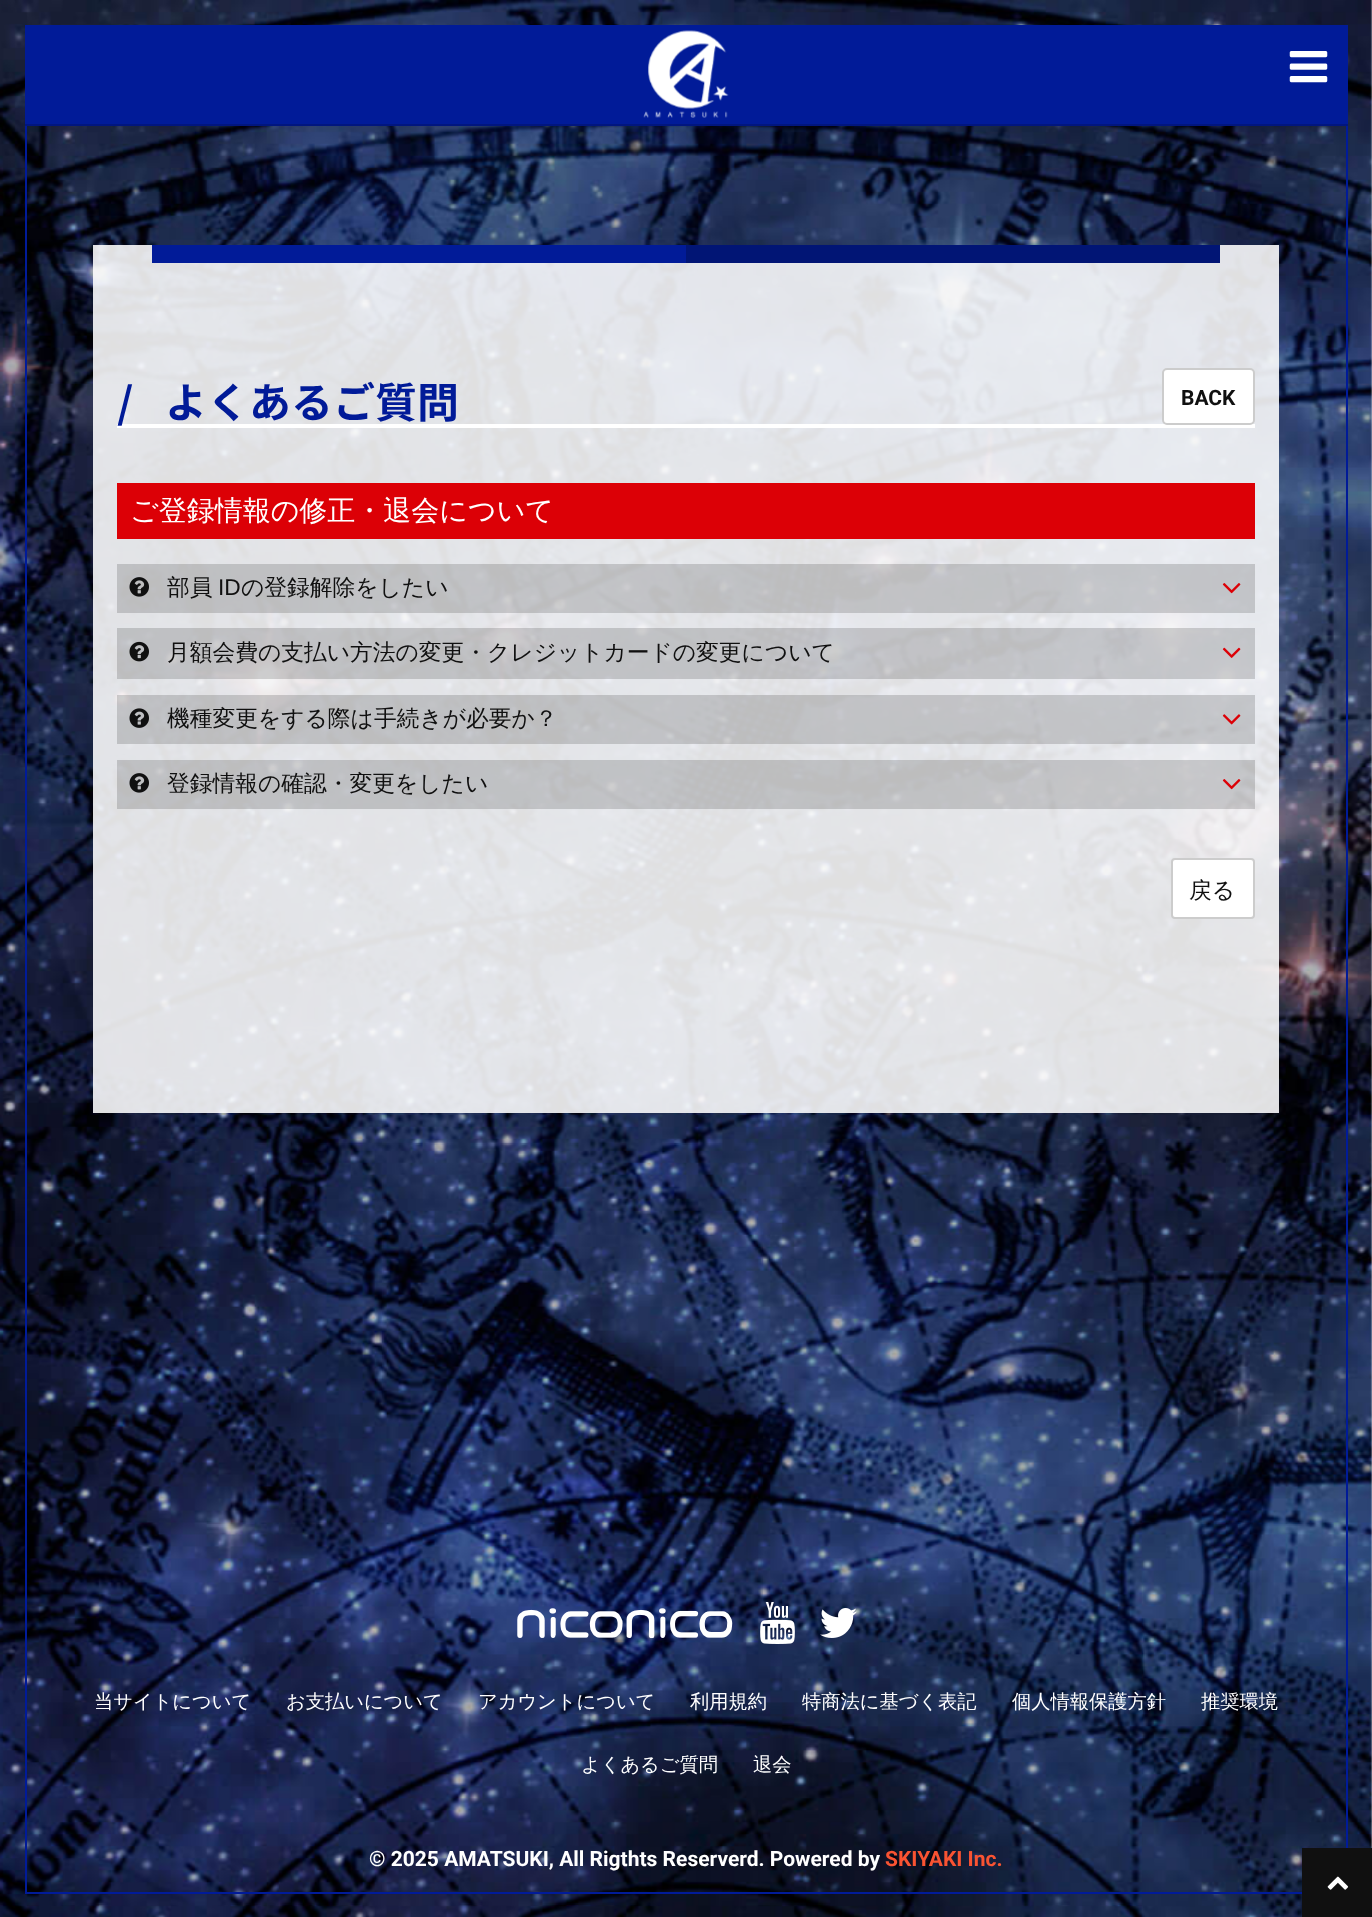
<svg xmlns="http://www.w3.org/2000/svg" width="1372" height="1917">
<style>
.a{font:bold 42px Noto Sans JP;fill:#011b98}
.b{font:bold 21px Roboto;fill:#101010}
.c{font:500 28px WenQuanYi Zen Hei;fill:#fff}
.d{font:500 22.75px WenQuanYi Zen Hei;fill:#101010}
.e{font:22.75px Liberation Sans;fill:#101010}
.f{font:500 19.25px WenQuanYi Zen Hei;fill:#fff}
.g{font:bold 21px Roboto;fill:#fff}
.h{font:bold 21px Roboto;fill:#f95332}
</style>
<rect width="100%" height="100%" fill="#fff"/>
<image href="1.png" x="0" y="0" width="1372" height="1917"/>
<path fill="#011b98" d="M25 25h1323v99H25z"/>
<path fill="#01167f" d="M25 124h1323v2H25z"/>
<image href="2.png" x="643" y="30" width="86" height="88"/>
<image href="3.png" x="1289" y="51" width="39" height="32"/>
<path fill="#011b98" d="M25 126h2v1768H25z"/>
<path fill="#ffffffe0" d="M93 245h1186v868H93z"/>
<path fill="#011b98" d="M152 245h534v18H152z"/>
<path fill="#011575" d="M686 245h534v18H686z"/>
<path fill="#fff" d="M117 424h1138v4H117z"/>
<rect fill="#fff" stroke="#ccc" stroke-width="2" x="1163" y="369" width="91" height="55" rx="4"/>
<path fill="#dc0006" d="M117 483h1138v56H117z"/>
<path fill="#33333333" d="M117 564h1138v49H117z"/>
<image href="4.png" x="129" y="577" width="20" height="20"/>
<image href="5.png" x="1222" y="583" width="19" height="11"/>
<path fill="#33333333" d="M117 628h1138v51H117z"/>
<image href="6.png" x="129" y="641" width="20" height="21"/>
<image href="7.png" x="1222" y="647" width="19" height="11"/>
<path fill="#33333333" d="M117 695h1138v49H117z"/>
<image href="8.png" x="129" y="708" width="20" height="20"/>
<image href="9.png" x="1222" y="714" width="19" height="11"/>
<path fill="#33333333" d="M117 760h1138v49H117z"/>
<image href="10.png" x="129" y="773" width="20" height="20"/>
<image href="11.png" x="1222" y="779" width="19" height="11"/>
<rect fill="#fff" stroke="#ccc" stroke-width="2" x="1172" y="859" width="82" height="59" rx="3"/>
<path fill="#011b98" d="M1346 126h2v1722H1346z"/>
<image href="12.png" x="517" y="1608" width="216" height="30"/>
<image href="13.png" x="760" y="1602" width="35" height="42"/>
<image href="14.png" x="820" y="1608" width="37" height="30"/>
<path fill="#011b98" d="M25 1892h1277v2H25z"/>
<path fill="#101010" d="M1302 1848h70v69H1302z"/>
<image href="15.png" x="1327" y="1876" width="22" height="14"/>
<text class="a" x="117" y="418">/</text>
<text class="a" x="165" y="418">よくあるご質問</text>
<text class="b" x="1181" y="405">BACK</text>
<text class="c" x="130" y="520">ご登録情報の修正・退会について</text>
<text class="d" x="167" y="595">部員</text>
<text class="e" x="218" y="595">ID</text>
<text class="d" x="241" y="595">の登録解除をしたい</text>
<text class="d" x="167" y="660">月額会費の支払い方法の変更・クレジットカードの変更について</text>
<text class="d" x="167" y="726">機種変更をする際は手続きが必要か？</text>
<text class="d" x="167" y="791">登録情報の確認・変更をしたい</text>
<text class="d" x="1189" y="898">戻る</text>
<text class="f" x="94" y="1708">当サイトについて</text>
<text class="f" x="286" y="1708">お支払いについて</text>
<text class="f" x="478" y="1708">アカウントについて</text>
<text class="f" x="690" y="1708">利用規約</text>
<text class="f" x="802" y="1708">特商法に基づく表記</text>
<text class="f" x="1012" y="1708">個人情報保護方針</text>
<text class="f" x="1201" y="1708">推奨環境</text>
<text class="f" x="581" y="1771">よくあるご質問</text>
<text class="f" x="753" y="1771">退会</text>
<text class="g" x="369" y="1866">© 2025 AMATSUKI, All Rigthts Reserverd. Powered by</text>
<text class="h" x="885" y="1866">SKIYAKI Inc.</text>
</svg>
